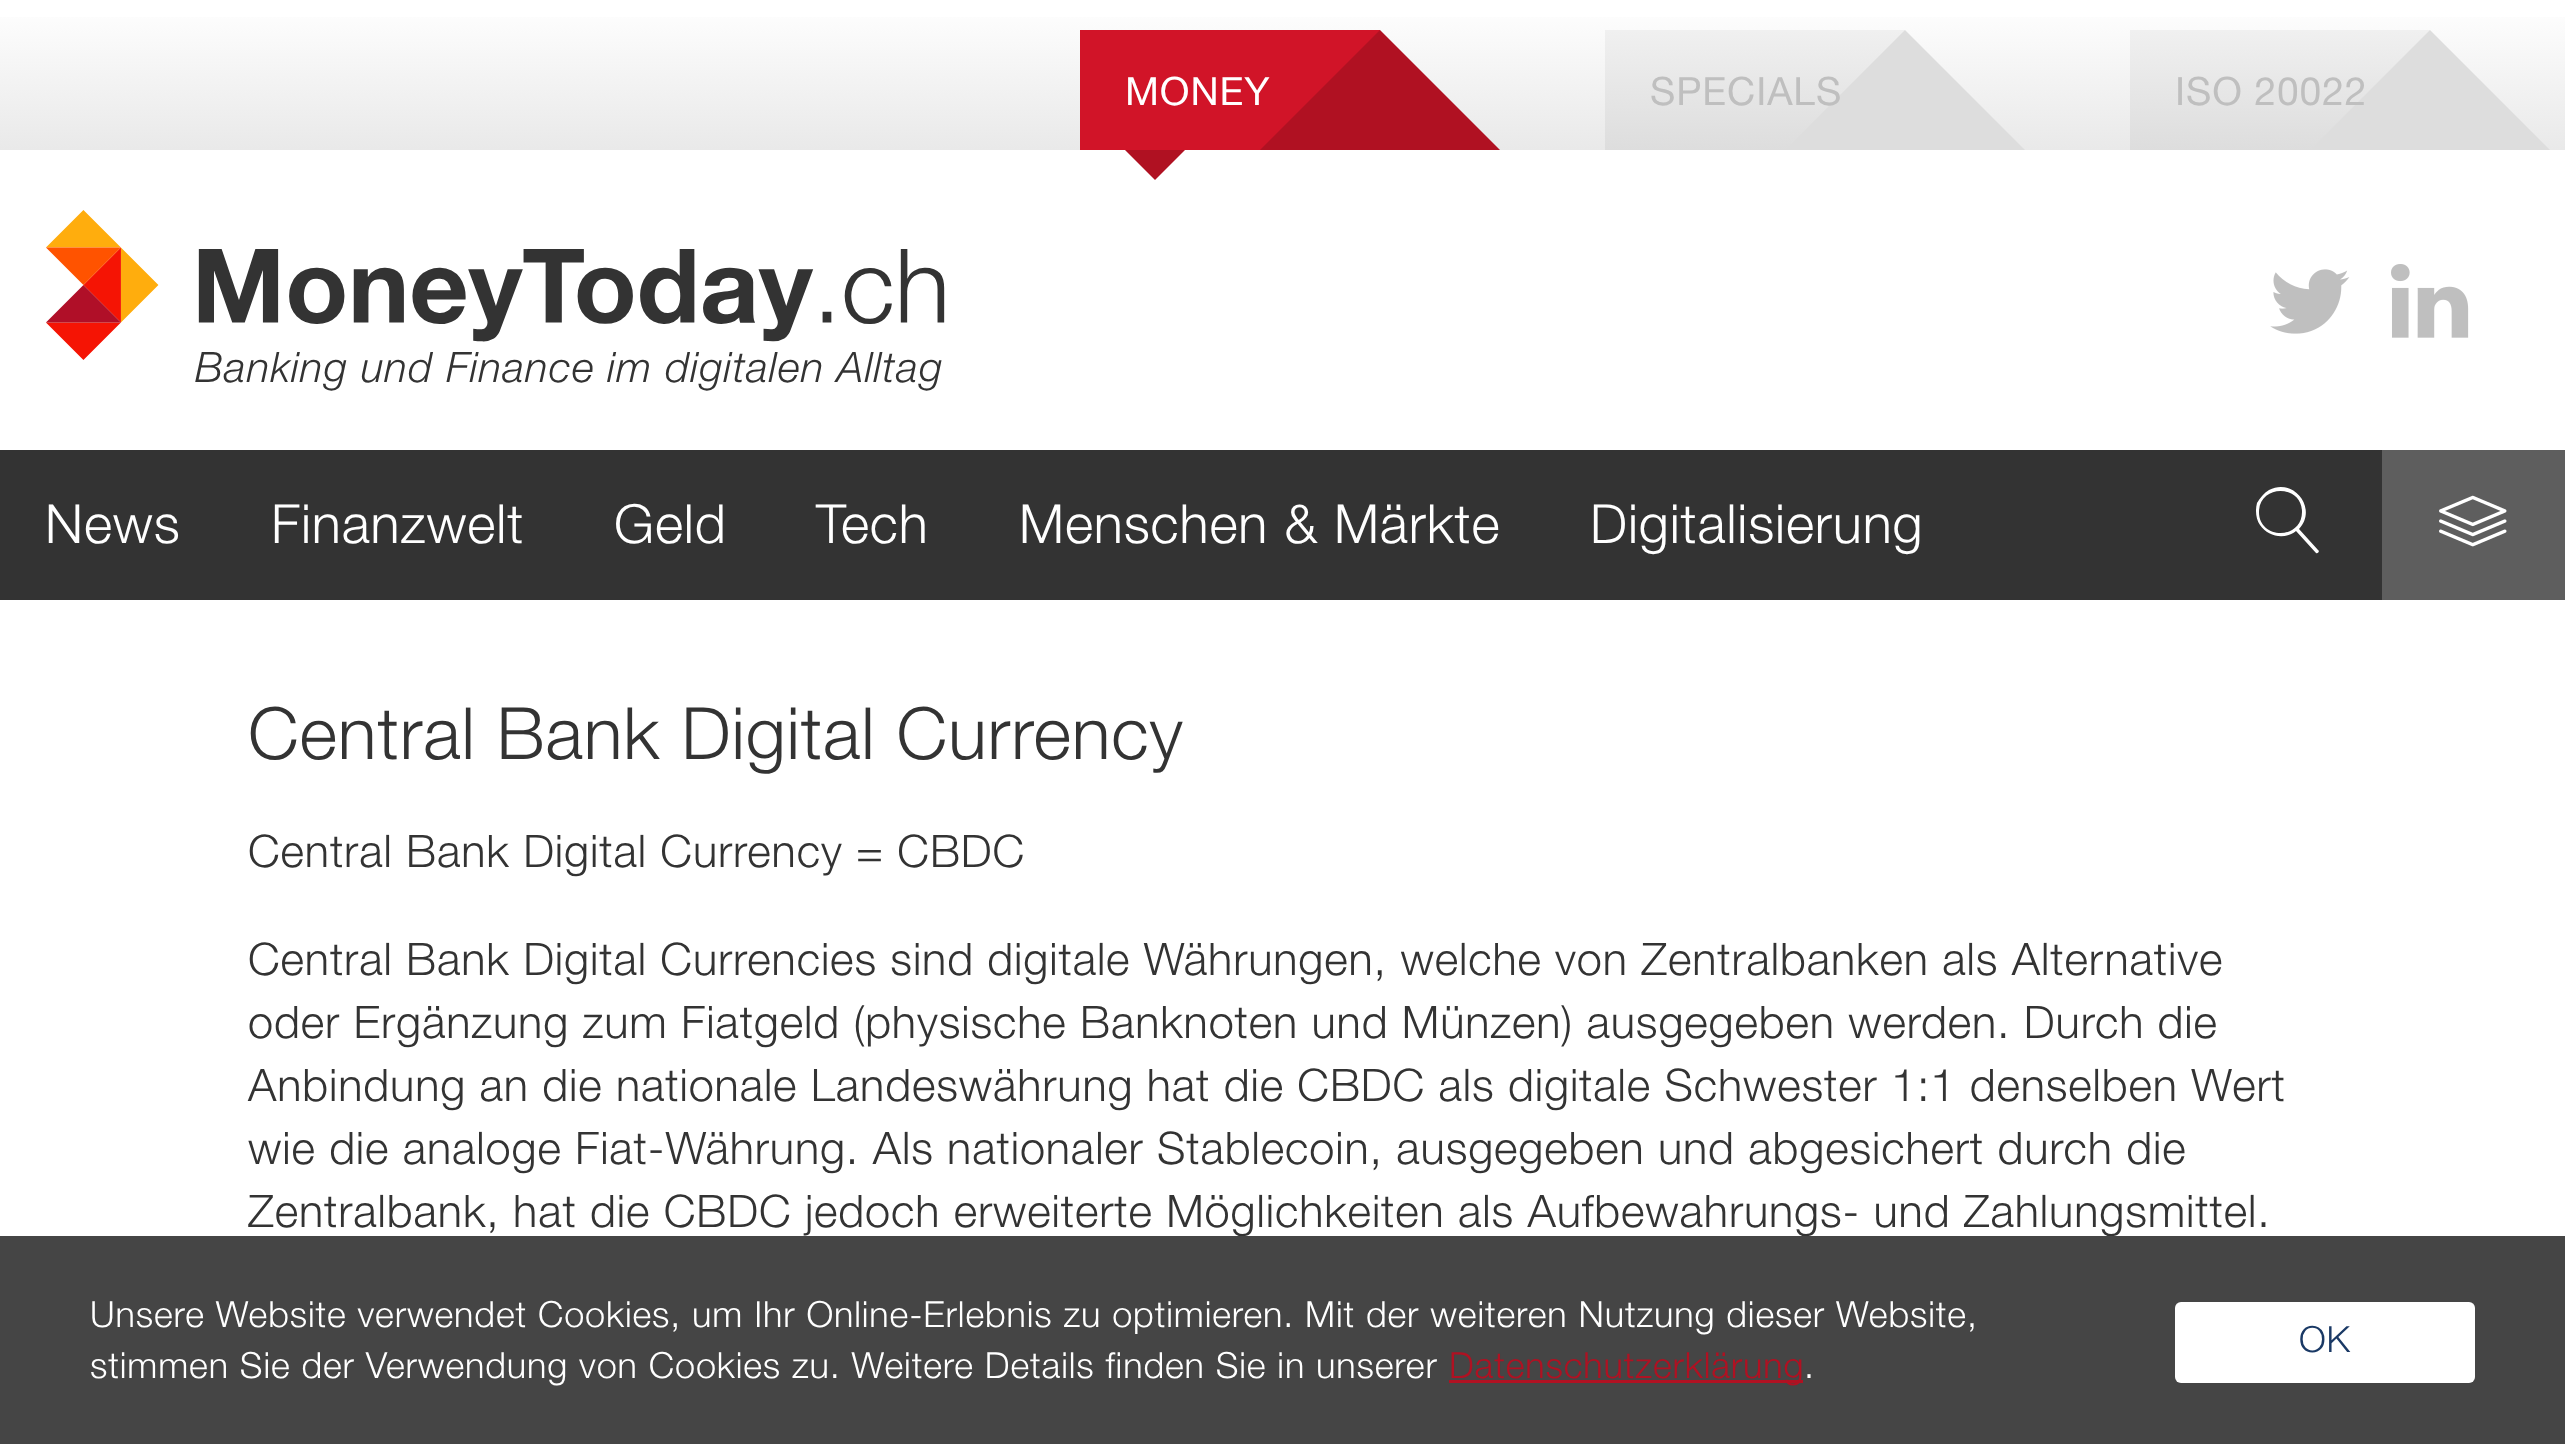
<svg xmlns="http://www.w3.org/2000/svg" width="2565" height="1444">
<style>
.a{font:39px 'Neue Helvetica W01';letter-spacing:0.9px;fill:#fff}
.b{font:39px 'Neue Helvetica W01';letter-spacing:0.9px;fill:#bfbfbf}
.c{font:italic 300 42px 'Neue Helvetica W01';letter-spacing:1.1px;fill:#333}
.d{font:300 54px 'Neue Helvetica W01';letter-spacing:0.9px;fill:#fff}
.e{font:300 72px 'Neue Helvetica W01';letter-spacing:0.9px;fill:#333}
.f{font:300 45px 'Neue Helvetica W01';letter-spacing:0.9px;fill:#333}
.g{font:300 36px 'Neue Helvetica W01';letter-spacing:0.9px;fill:#fff}
.h{font:300 36px 'Neue Helvetica W01';letter-spacing:0.9px;fill:#b01122}
.i{font:300 36px 'Neue Helvetica W01';letter-spacing:0.9px;fill:#1a3965}
</style>
<defs>
<linearGradient id="g1" gradientUnits="userSpaceOnUse" x1="1283" y1="0" x2="1283" y2="150"><stop offset="0" stop-color="#fff"/><stop offset="1" stop-color="#e9e9e9"/></linearGradient>
<linearGradient id="g2" gradientUnits="userSpaceOnUse" x1="1755" y1="30" x2="1755" y2="150"><stop offset="0" stop-color="#f0f0f0"/><stop offset="1" stop-color="#ddd"/></linearGradient>
<linearGradient id="g3" gradientUnits="userSpaceOnUse" x1="2280" y1="30" x2="2280" y2="150"><stop offset="0" stop-color="#f0f0f0"/><stop offset="1" stop-color="#ddd"/></linearGradient>
</defs>
<rect width="100%" height="100%" fill="#fff"/>
<path fill="url(#g1)" d="M0 17h2565v133H0z"/>
<path fill="#d11428" d="M1080 30h300v120H1080z"/>
<path fill="#b01122" d="M1500 150h-240l120-120z"/>
<path fill="#b01122" d="M1125 150h60l-30 30z"/>
<path fill="url(#g2)" d="M1605 30h300v120H1605z"/>
<path fill="#ddd" d="M2025 150h-240l120-120z"/>
<path fill="url(#g3)" d="M2130 30h300v120H2130z"/>
<path fill="#ddd" d="M2550 150h-240l120-120z"/>
<image href="1.png" x="2270" y="269" width="80" height="65"/>
<image href="2.png" x="2391" y="264" width="78" height="74"/>
<image href="3.png" x="46" y="210" width="899" height="150"/>
<path fill="#333" d="M0 450h2382v150H0z"/>
<path fill="#fff" d="M2318 550l-19-21c19-20-5-52-30-39c-5 3-9 8-12 13c-2 8-1 16 3 22c8 12 25 15 36 6l20 22c2 1 4-2 2-3zm-59-38c0-28 43-28 43 0c0 28-43 28-43 0z"/>
<path fill="#5e5e5e" d="M2382 450h183v150H2382z"/>
<image href="4.png" x="2439" y="495" width="68" height="52"/>
<text class="a" x="1125" y="105">MONEY</text>
<text class="b" x="1650" y="105">SPECIALS</text>
<text class="b" x="2175" y="105">ISO 20022</text>
<text class="c" x="195" y="382">Banking und Finance im digitalen Alltag</text>
<text class="d" x="45" y="543">News</text>
<text class="d" x="271" y="543">Finanzwelt</text>
<text class="d" x="614" y="543">Geld</text>
<text class="d" x="816" y="543">Tech</text>
<text class="d" x="1019" y="543">Menschen &amp; Märkte</text>
<text class="d" x="1590" y="543">Digitalisierung</text>
<text class="e" x="248" y="759">Central Bank Digital Currency</text>
<text class="f" x="248" y="867">Central Bank Digital Currency = CBDC</text>
<text class="f" x="248" y="975">Central Bank Digital Currencies sind digitale Währungen, welche von Zentralbanken als Alternative</text>
<text class="f" x="248" y="1038">oder Ergänzung zum Fiatgeld (physische Banknoten und Münzen) ausgegeben werden. Durch die</text>
<text class="f" x="248" y="1101">Anbindung an die nationale Landeswährung hat die CBDC als digitale Schwester 1:1 denselben Wert</text>
<text class="f" x="248" y="1164">wie die analoge Fiat-Währung. Als nationaler Stablecoin, ausgegeben und abgesichert durch die</text>
<text class="f" x="248" y="1227">Zentralbank, hat die CBDC jedoch erweiterte Möglichkeiten als Aufbewahrungs- und Zahlungsmittel.</text>
<path fill="#454545" d="M0 1236h2565v208H0z"/>
<text class="g" x="90" y="1327">Unsere Website verwendet Cookies, um Ihr Online-Erlebnis zu optimieren. Mit der weiteren Nutzung dieser Website,</text>
<text class="g" x="90" y="1378">stimmen Sie der Verwendung von Cookies zu. Weitere Details finden Sie in unserer</text>
<path fill="#b01122" d="M1449 1380h354v3H1449z"/>
<text class="h" x="1449" y="1378">Datenschutzerklärung</text>
<text class="g" x="1804" y="1378">.</text>
<rect fill="#fff" x="2175" y="1302" width="300" height="81" rx="6"/>
<text class="i" x="2299" y="1352">OK</text>
</svg>
